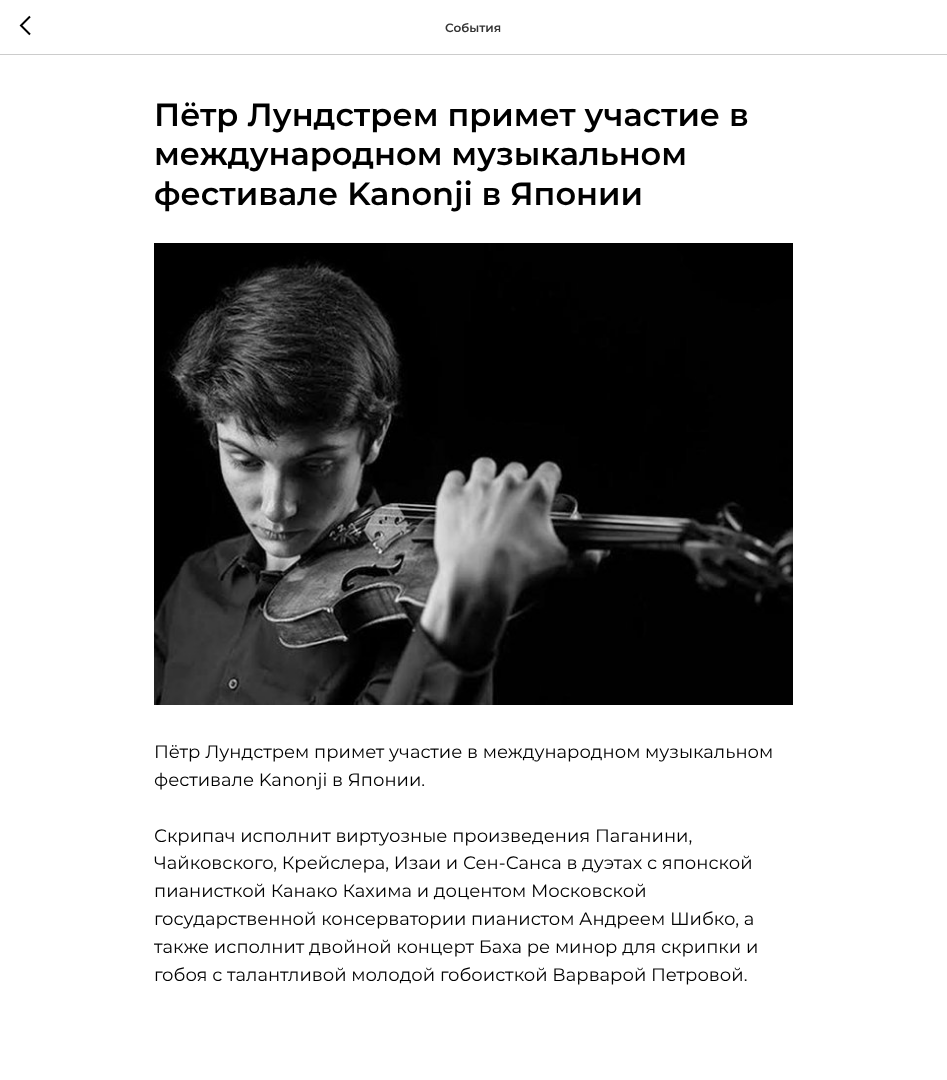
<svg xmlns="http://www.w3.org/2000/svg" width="947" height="1080">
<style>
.a{font:600 12px Montserrat;fill:#333}
.b{font:600 32px Montserrat;fill:#000}
.c{font:18px Montserrat;fill:#000}
</style>
<rect width="100%" height="100%" fill="#fff"/>
<path fill="#ccc" d="M0 54h947v1H0z"/>
<path fill="none" stroke="#000" stroke-width="2" d="M30 34.5l-9-9l9-9"/>
<image href="1.png" x="154" y="243" width="639" height="462"/>
<text class="a" x="445" y="32">События</text>
<text class="b" x="154" y="126">Пётр Лундстрем примет участие в</text>
<text class="b" x="154" y="165">международном музыкальном</text>
<text class="b" x="154" y="205">фестивале Kanonji в Японии</text>
<text class="c" x="154" y="758">Пётр Лундстрем примет участие в международном музыкальном</text>
<text class="c" x="154" y="786">фестивале Kanonji в Японии.</text>
<text class="c" x="154" y="842">Скрипач исполнит виртуозные произведения Паганини,</text>
<text class="c" x="154" y="869">Чайковского, Крейслера, Изаи и Сен-Санса в дуэтах с японской</text>
<text class="c" x="154" y="897">пианисткой Канако Кахима и доцентом Московской</text>
<text class="c" x="154" y="925">государственной консерватории пианистом Андреем Шибко, а</text>
<text class="c" x="154" y="953">также исполнит двойной концерт Баха ре минор для скрипки и</text>
<text class="c" x="154" y="981">гобоя с талантливой молодой гобоисткой Варварой Петровой.</text>
</svg>
